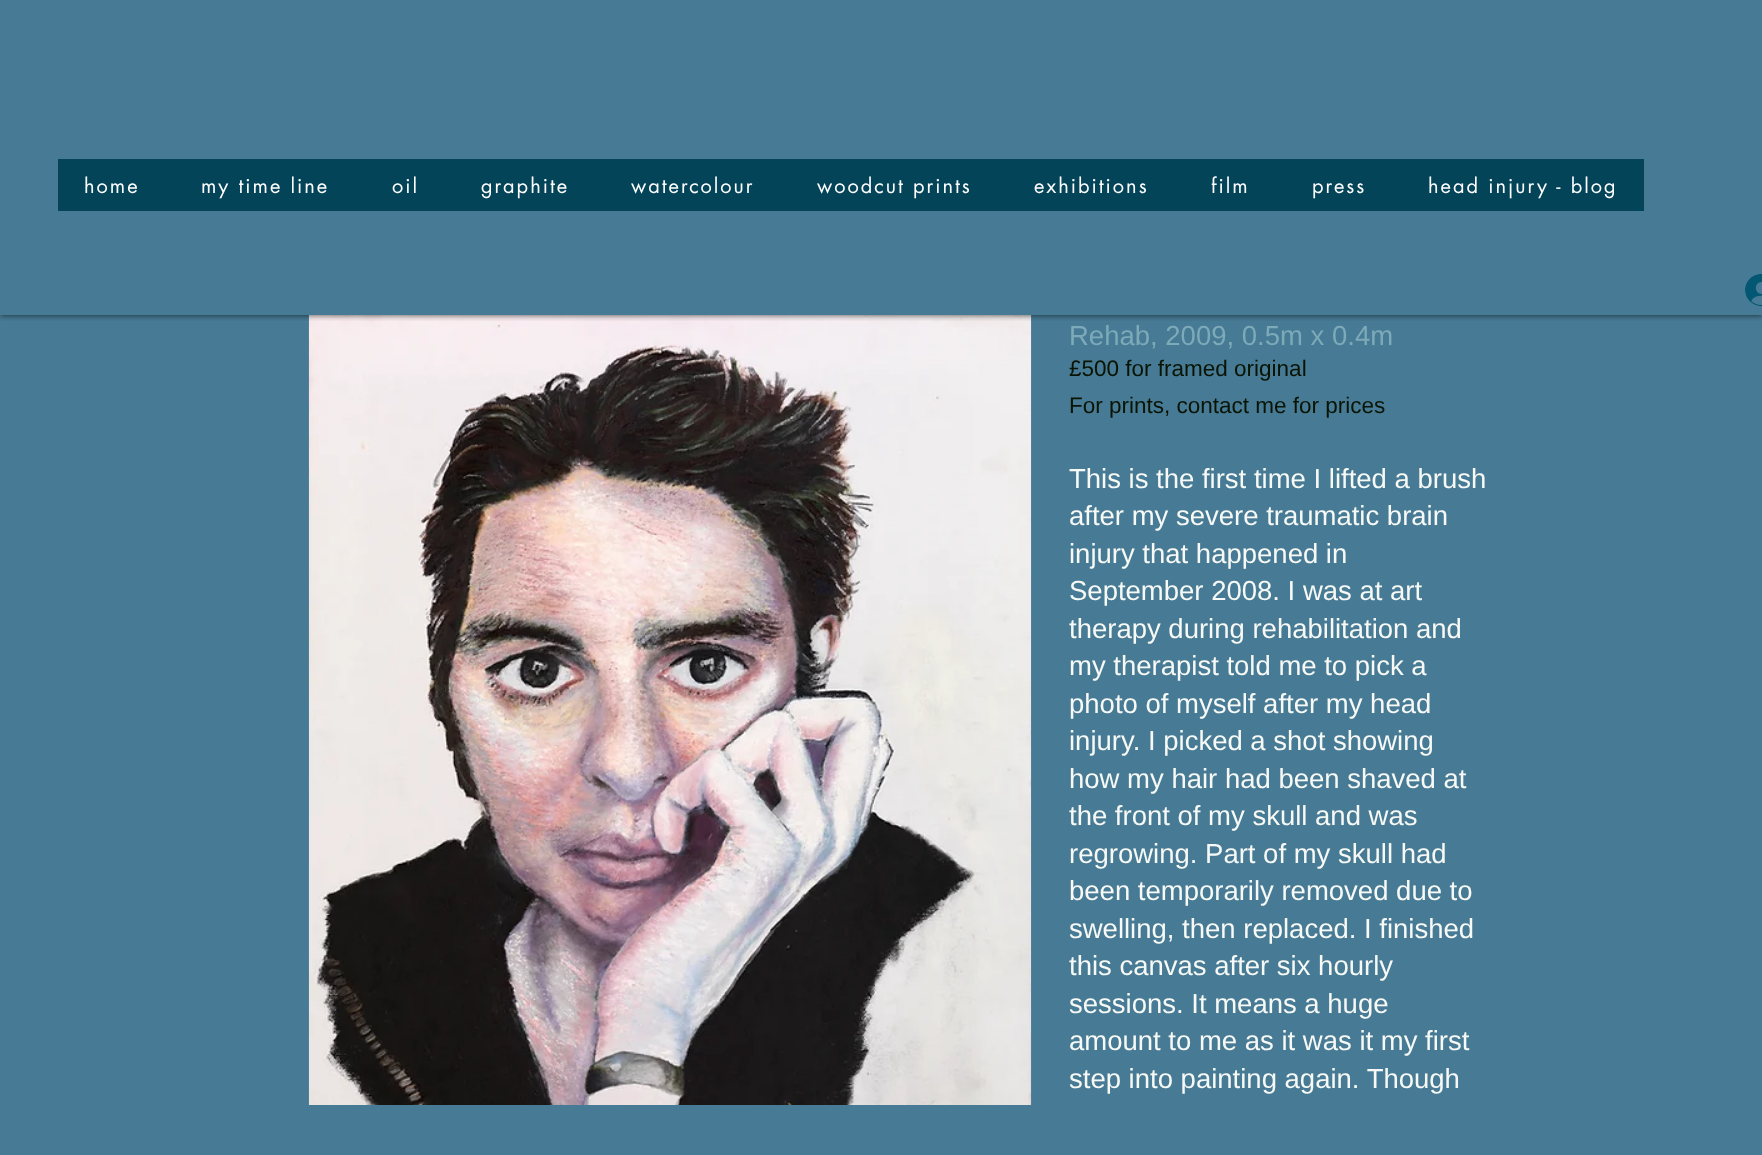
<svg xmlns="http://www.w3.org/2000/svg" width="1762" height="1155">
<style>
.a{font:20px futura;letter-spacing:2px;fill:#fff}
.b{font:27.5px Liberation Sans;fill:#7daab9}
.c{font:22.5px Liberation Sans;fill:#091405}
.d{font:27.5px Liberation Sans;fill:#f6f9f5}
</style>
<defs>
<clipPath id="clip1"><path d="M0 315h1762v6H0z"/></clipPath>
</defs>
<rect width="100%" height="100%" fill="#477a94"/>
<image href="2.png" x="308" y="315" width="724" height="790"/>
<g clip-path="url(#clip1)">
<path fill="#000000b3" filter="blur(3px)" d="M0 0h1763v315H0z"/>
</g>
<path fill="#034459" d="M58 159h1586v52H58z"/>
<image href="1.png" x="1745" y="274" width="17" height="32"/>
<text class="a" x="84" y="193">home</text>
<text class="a" x="201" y="193">my time line</text>
<text class="a" x="392" y="193">oil</text>
<text class="a" x="481" y="193">graphite</text>
<text class="a" x="631" y="193">watercolour</text>
<text class="a" x="817" y="193">woodcut prints</text>
<text class="a" x="1034" y="193">exhibitions</text>
<text class="a" x="1211" y="193">film</text>
<text class="a" x="1312" y="193">press</text>
<text class="a" x="1428" y="193">head injury - blog</text>
<text class="b" x="1069" y="345">Rehab, 2009, 0.5m x 0.4m</text>
<text class="c" x="1069" y="376">£500 for framed original</text>
<text class="c" x="1069" y="413">For prints, contact me for prices</text>
<text class="d" x="1069" y="488">This is the first time I lifted a brush</text>
<text class="d" x="1069" y="525">after my severe traumatic brain</text>
<text class="d" x="1069" y="563">injury that happened in</text>
<text class="d" x="1069" y="600">September 2008. I was at art</text>
<text class="d" x="1069" y="638">therapy during rehabilitation and</text>
<text class="d" x="1069" y="675">my therapist told me to pick a</text>
<text class="d" x="1069" y="713">photo of myself after my head</text>
<text class="d" x="1069" y="750">injury. I picked a shot showing</text>
<text class="d" x="1069" y="788">how my hair had been shaved at</text>
<text class="d" x="1069" y="825">the front of my skull and was</text>
<text class="d" x="1069" y="863">regrowing. Part of my skull had</text>
<text class="d" x="1069" y="900">been temporarily removed due to</text>
<text class="d" x="1069" y="938">swelling, then replaced. I finished</text>
<text class="d" x="1069" y="975">this canvas after six hourly</text>
<text class="d" x="1069" y="1013">sessions. It means a huge</text>
<text class="d" x="1069" y="1050">amount to me as it was it my first</text>
<text class="d" x="1069" y="1088">step into painting again. Though</text>
</svg>
